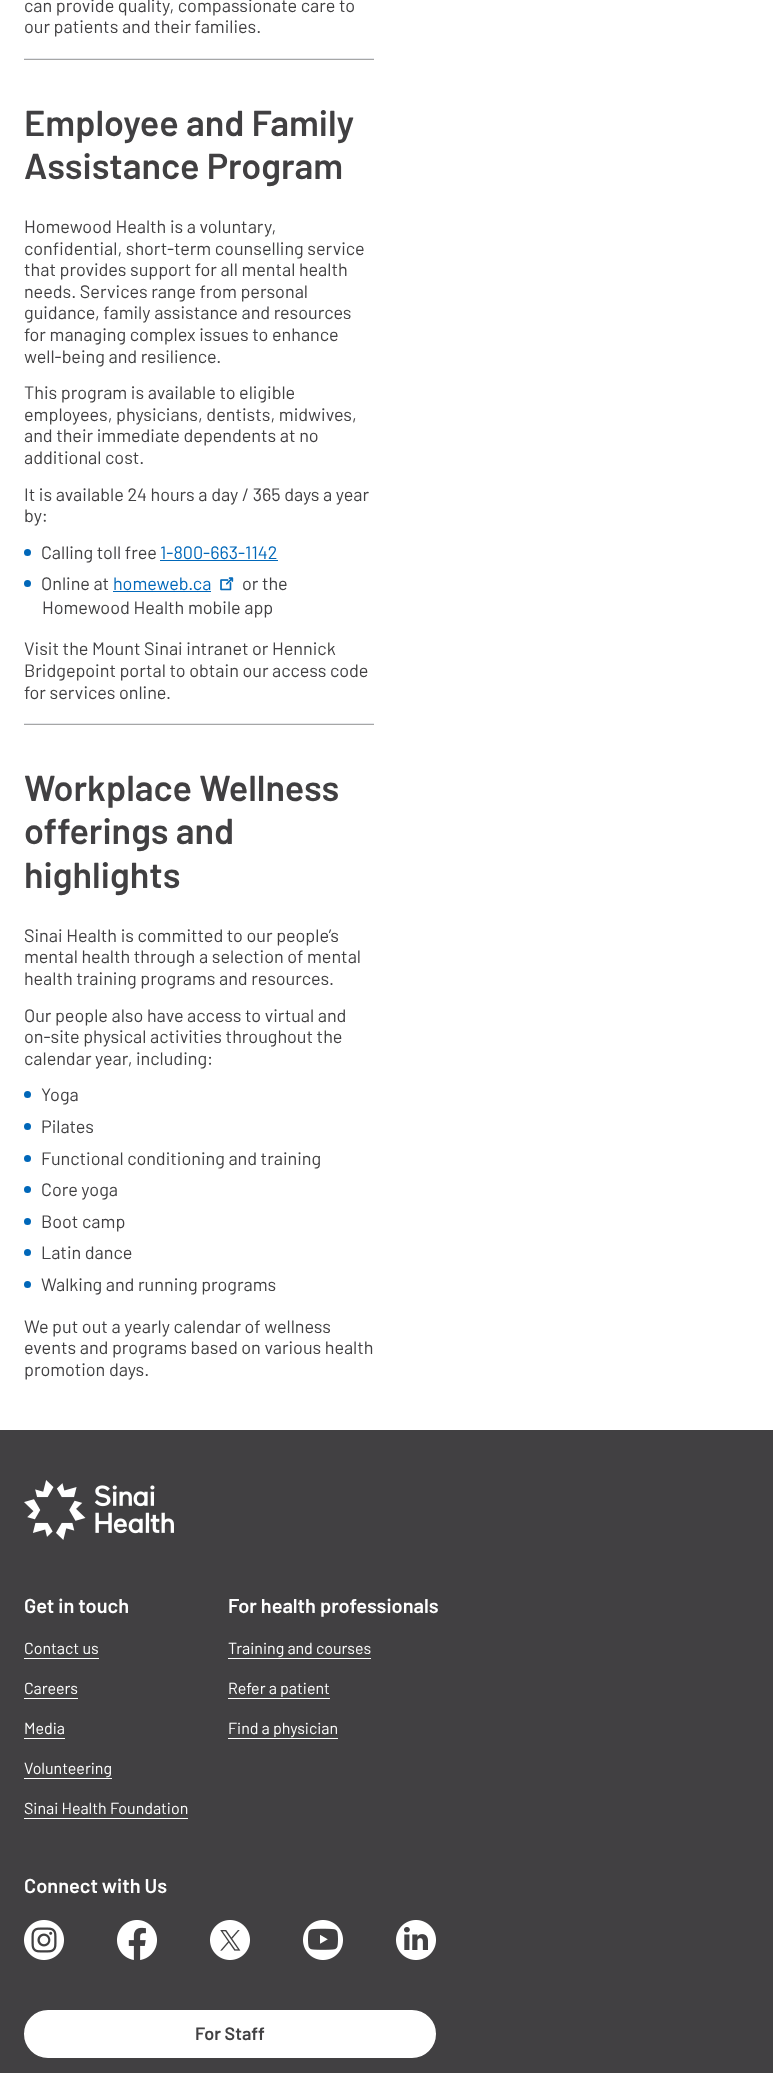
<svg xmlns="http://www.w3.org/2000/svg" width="773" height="2073">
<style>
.a{font:18px Barlow;fill:#414042}
.b{font:600 36px Barlow;fill:#414042}
.c{font:18px Barlow;fill:#0067b9}
.d{font:600 20px Barlow;fill:#fff}
.e{font:16px Barlow;fill:#fff}
.f{font:600 18px Barlow;fill:#414042}
</style>
<rect width="100%" height="100%" fill="#fff"/>
<path fill="#a6a6a6" d="M24 59h350v1H24z"/>
<path fill="#e5e7eb" d="M24 58h350v1H24z"/>
<circle fill="#0067b9" cx="27.5" cy="552.5" r="3.5"/>
<path fill="#0067b9" d="M160 560h118v1H160z"/>
<circle fill="#0067b9" cx="27.5" cy="583.5" r="3.5"/>
<path fill="#0067b9" d="M113 591h98v1H113z"/>
<image href="1.png" x="220" y="577" width="14" height="14"/>
<path fill="#a6a6a6" d="M24 724h350v1H24z"/>
<path fill="#e5e7eb" d="M24 723h350v1H24z"/>
<circle fill="#0067b9" cx="27.5" cy="1094.5" r="3.5"/>
<circle fill="#0067b9" cx="27.5" cy="1126.5" r="3.5"/>
<circle fill="#0067b9" cx="27.5" cy="1158.5" r="3.5"/>
<circle fill="#0067b9" cx="27.5" cy="1189.5" r="3.5"/>
<circle fill="#0067b9" cx="27.5" cy="1221.5" r="3.5"/>
<circle fill="#0067b9" cx="27.5" cy="1252.5" r="3.5"/>
<circle fill="#0067b9" cx="27.5" cy="1284.5" r="3.5"/>
<path fill="#414042" d="M0 1430h773v643H0z"/>
<image href="2.png" x="24" y="1480" width="150" height="60"/>
<path fill="#fff" d="M24 1658h75v1H24z"/>
<path fill="#fff" d="M24 1698h54v1H24z"/>
<path fill="#fff" d="M24 1738h41v1H24z"/>
<path fill="#fff" d="M24 1778h88v1H24z"/>
<path fill="#fff" d="M24 1818h164v1H24z"/>
<path fill="#fff" d="M228 1658h143v1H228z"/>
<path fill="#fff" d="M228 1698h102v1H228z"/>
<path fill="#fff" d="M228 1738h110v1H228z"/>
<image href="3.png" x="24" y="1920" width="40" height="40"/>
<image href="4.png" x="117" y="1920" width="40" height="40"/>
<image href="5.png" x="210" y="1920" width="40" height="40"/>
<image href="6.png" x="303" y="1920" width="40" height="40"/>
<image href="7.png" x="396" y="1920" width="40" height="40"/>
<rect fill="#fff" stroke="#fff" stroke-width="2" x="25" y="2011" width="410" height="46" rx="23"/>
<text class="a" x="24" y="12">can provide quality, compassionate care to</text>
<text class="a" x="24" y="33">our patients and their families.</text>
<text class="b" x="24" y="136">Employee and Family</text>
<text class="b" x="24" y="179">Assistance Program</text>
<text class="a" x="24" y="233">Homewood Health is a voluntary,</text>
<text class="a" x="24" y="255">confidential, short-term counselling service</text>
<text class="a" x="24" y="276">that provides support for all mental health</text>
<text class="a" x="24" y="298">needs. Services range from personal</text>
<text class="a" x="24" y="319">guidance, family assistance and resources</text>
<text class="a" x="24" y="341">for managing complex issues to enhance</text>
<text class="a" x="24" y="363">well-being and resilience.</text>
<text class="a" x="24" y="399">This program is available to eligible</text>
<text class="a" x="24" y="421">employees, physicians, dentists, midwives,</text>
<text class="a" x="24" y="442">and their immediate dependents at no</text>
<text class="a" x="24" y="464">additional cost.</text>
<text class="a" x="24" y="501">It is available 24 hours a day / 365 days a year</text>
<text class="a" x="24" y="522">by:</text>
<text class="a" x="41" y="559">Calling toll free</text>
<text class="c" x="160" y="559">1-800-663-1142</text>
<text class="a" x="41" y="590">Online at</text>
<text class="c" x="113" y="590">homeweb.ca</text>
<text class="a" x="242" y="590">or the</text>
<text class="a" x="42" y="614">Homewood Health mobile app</text>
<text class="a" x="24" y="655">Visit the Mount Sinai intranet or Hennick</text>
<text class="a" x="24" y="677">Bridgepoint portal to obtain our access code</text>
<text class="a" x="24" y="699">for services online.</text>
<text class="b" x="24" y="801">Workplace Wellness</text>
<text class="b" x="24" y="844">offerings and</text>
<text class="b" x="24" y="888">highlights</text>
<text class="a" x="24" y="942">Sinai Health is committed to our people’s</text>
<text class="a" x="24" y="963">mental health through a selection of mental</text>
<text class="a" x="24" y="985">health training programs and resources.</text>
<text class="a" x="24" y="1022">Our people also have access to virtual and</text>
<text class="a" x="24" y="1043">on-site physical activities throughout the</text>
<text class="a" x="24" y="1065">calendar year, including:</text>
<text class="a" x="41" y="1101">Yoga</text>
<text class="a" x="41" y="1133">Pilates</text>
<text class="a" x="41" y="1165">Functional conditioning and training</text>
<text class="a" x="41" y="1196">Core yoga</text>
<text class="a" x="41" y="1228">Boot camp</text>
<text class="a" x="41" y="1259">Latin dance</text>
<text class="a" x="41" y="1291">Walking and running programs</text>
<text class="a" x="24" y="1333">We put out a yearly calendar of wellness</text>
<text class="a" x="24" y="1354">events and programs based on various health</text>
<text class="a" x="24" y="1376">promotion days.</text>
<text class="d" x="24" y="1613">Get in touch</text>
<text class="e" x="24" y="1654">Contact us</text>
<text class="e" x="24" y="1694">Careers</text>
<text class="e" x="24" y="1734">Media</text>
<text class="e" x="24" y="1774">Volunteering</text>
<text class="e" x="24" y="1814">Sinai Health Foundation</text>
<text class="d" x="228" y="1613">For health professionals</text>
<text class="e" x="228" y="1654">Training and courses</text>
<text class="e" x="228" y="1694">Refer a patient</text>
<text class="e" x="228" y="1734">Find a physician</text>
<text class="d" x="24" y="1893">Connect with Us</text>
<text class="f" x="195" y="2040">For Staff</text>
</svg>
